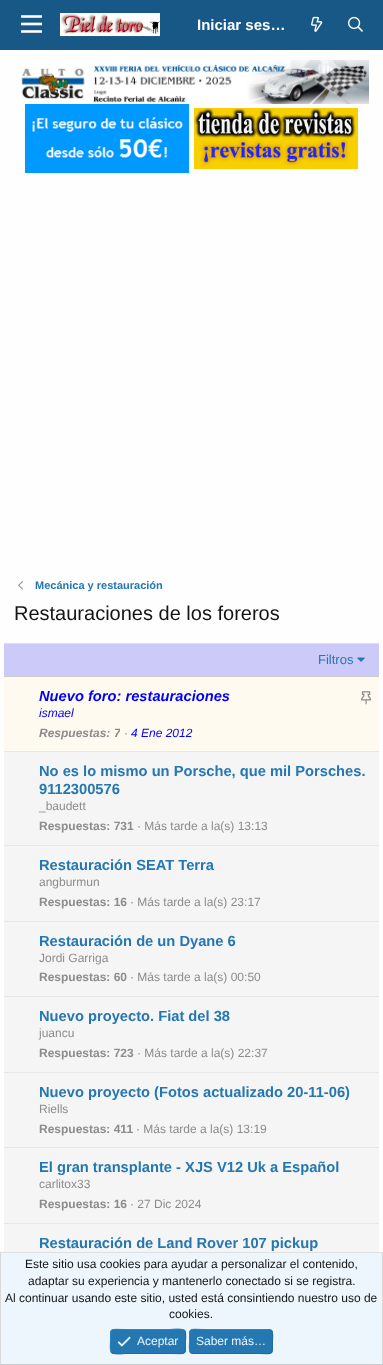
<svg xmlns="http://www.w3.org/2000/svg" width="383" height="1365">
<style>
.a{font:bold 15px Liberation Sans;fill:#fefefe}
.b{font:bold 11px Liberation Sans;fill:#2577b1}
.c{font:20px Liberation Sans;fill:#141414}
.d{font:13px Liberation Sans;fill:#2577b1}
.e{font:italic bold 14.7px Liberation Sans;fill:#00f}
.f{font:italic 12px Liberation Sans;fill:#00f}
.g{font:italic bold 12px Liberation Sans;fill:#8c8c8c}
.h{font:italic 12px Liberation Sans;fill:#8c8c8c}
.i{font:bold 14.7px Liberation Sans;fill:#2577b1}
.j{font:12px Liberation Sans;fill:#8c8c8c}
.k{font:bold 12px Liberation Sans;fill:#8c8c8c}
.l{font:12px Liberation Sans;fill:#141414}
.m{font:12px Liberation Sans;fill:#edf6fd}
</style>
<defs>
<clipPath id="clip1"><path d="M39 725h81v16H39z"/></clipPath>
</defs>
<rect width="100%" height="100%" fill="#fefefe"/>
<path fill="#185886" d="M0 0h383v50H0z"/>
<image href="1.png" x="21" y="15" width="21" height="18"/>
<image href="2.png" x="60" y="13" width="100" height="24"/>
<image href="3.png" x="311" y="16" width="12" height="16"/>
<image href="4.png" x="348" y="16" width="15" height="16"/>
<image href="5.png" x="21" y="60" width="348" height="44"/>
<image href="6.png" x="25" y="104" width="164" height="69"/>
<image href="7.png" x="194" y="108" width="164" height="61"/>
<image href="8.png" x="18" y="581" width="5" height="9"/>
<path fill="#f5f5f5" d="M4 752h375v500H4z"/>
<path fill="#dfdfdf" d="M4 643h375v1H4z"/>
<path fill="#cccaf8" d="M4 644h375v32H4z"/>
<path fill="#cbcbcb" d="M4 676h375v1H4z"/>
<image href="9.png" x="357" y="657" width="8" height="5"/>
<path fill="#fffaf0" d="M4 677h375v74H4z"/>
<image href="10.png" x="361" y="691" width="11" height="14"/>
<path fill="#e7e7e7" d="M4 751h375v1H4z"/>
<path fill="#e7e7e7" d="M4 845h375v1H4z"/>
<path fill="#e7e7e7" d="M4 921h375v1H4z"/>
<path fill="#e7e7e7" d="M4 996h375v1H4z"/>
<path fill="#e7e7e7" d="M4 1072h375v1H4z"/>
<path fill="#e7e7e7" d="M4 1147h375v1H4z"/>
<path fill="#e7e7e7" d="M4 1223h375v1H4z"/>
<path fill="#edf6fd" d="M1 1253h381v111H1z"/>
<path fill="#dfdfdf" d="M0 1252h383v1H0z"/>
<path fill="#d8d8d8" d="M382 1252h1v113H382z"/>
<path fill="#cbcbcb" d="M0 1364h383v1H0z"/>
<path fill="#d8d8d8" d="M0 1252h1v113H0z"/>
<rect fill="#2577b1" x="110" y="1329" width="76" height="25" rx="4"/>
<path fill="none" stroke="#21699c" d="M184.5 1330.5c2 2.5 1 8.5 1 11c0 14.5 1 12-15 12h-45c-.5 0-11 1.5-14-1"/>
<path fill="none" stroke="#2985c6" d="M111.5 1352.5c-2-2.5-1-8.5-1-11c0-14.5-1-12 15-12h45c.5 0 11-1.5 14 1"/>
<image href="11.png" x="117" y="1336" width="14" height="11"/>
<rect fill="#2577b1" x="189" y="1329" width="84" height="25" rx="4"/>
<path fill="none" stroke="#21699c" d="M271.5 1330.5c2 2.5 1 8.5 1 11c0 15 .5 12-16 12h-63.5l-2.5-1"/>
<path fill="none" stroke="#2985c6" d="M190.5 1352.5c-2-2.5-1-8.5-1-11c0-15-.5-12 16-12h63.5l2.5 1"/>
<text class="a" x="197" y="30">Iniciar ses…</text>
<text class="b" x="35" y="589">Mecánica y restauración</text>
<text class="c" x="14" y="620">Restauraciones de los foreros</text>
<text class="d" x="318" y="664">Filtros</text>
<text class="e" x="39" y="701">Nuevo foro: restauraciones</text>
<text class="f" x="39" y="717">ismael</text>
<text class="g" x="39" y="737">Respuestas:</text>
<g clip-path="url(#clip1)">
<text class="g" x="114" y="737">7</text>
</g>
<text class="h" x="124" y="737">·</text>
<text class="f" x="131" y="737">4 Ene 2012</text>
<text class="i" x="39" y="776">No es lo mismo un Porsche, que mil Porsches.</text>
<text class="i" x="39" y="794">9112300576</text>
<text class="j" x="39" y="810">_baudett</text>
<text class="k" x="39" y="830">Respuestas: 731</text>
<text class="j" x="137" y="830">· Más tarde a la(s) 13:13</text>
<text class="i" x="39" y="870">Restauración SEAT Terra</text>
<text class="j" x="39" y="886">angburmun</text>
<text class="k" x="39" y="906">Respuestas: 16</text>
<text class="j" x="130" y="906">· Más tarde a la(s) 23:17</text>
<text class="i" x="39" y="946">Restauración de un Dyane 6</text>
<text class="j" x="39" y="962">Jordi Garriga</text>
<text class="k" x="39" y="981">Respuestas: 60</text>
<text class="j" x="130" y="981">· Más tarde a la(s) 00:50</text>
<text class="i" x="39" y="1021">Nuevo proyecto. Fiat del 38</text>
<text class="j" x="39" y="1037">juancu</text>
<text class="k" x="39" y="1057">Respuestas: 723</text>
<text class="j" x="137" y="1057">· Más tarde a la(s) 22:37</text>
<text class="i" x="39" y="1097">Nuevo proyecto (Fotos actualizado 20-11-06)</text>
<text class="j" x="39" y="1113">Riells</text>
<text class="k" x="39" y="1133">Respuestas: 411</text>
<text class="j" x="136" y="1133">· Más tarde a la(s) 13:19</text>
<text class="i" x="39" y="1172">El gran transplante - XJS V12 Uk a Español</text>
<text class="j" x="39" y="1188">carlitox33</text>
<text class="k" x="39" y="1208">Respuestas: 16</text>
<text class="j" x="130" y="1208">· 27 Dic 2024</text>
<text class="i" x="39" y="1248">Restauración de Land Rover 107 pickup</text>
<text class="l" x="25" y="1268">Este sitio usa cookies para ayudar a personalizar el contenido,</text>
<text class="l" x="28" y="1285">adaptar su experiencia y mantenerlo conectado si se registra.</text>
<text class="l" x="5" y="1302">Al continuar usando este sitio, usted está consintiendo nuestro uso de</text>
<text class="l" x="169" y="1318">cookies.</text>
<text class="m" x="137" y="1345">Aceptar</text>
<text class="m" x="196" y="1345">Saber más…</text>
</svg>
